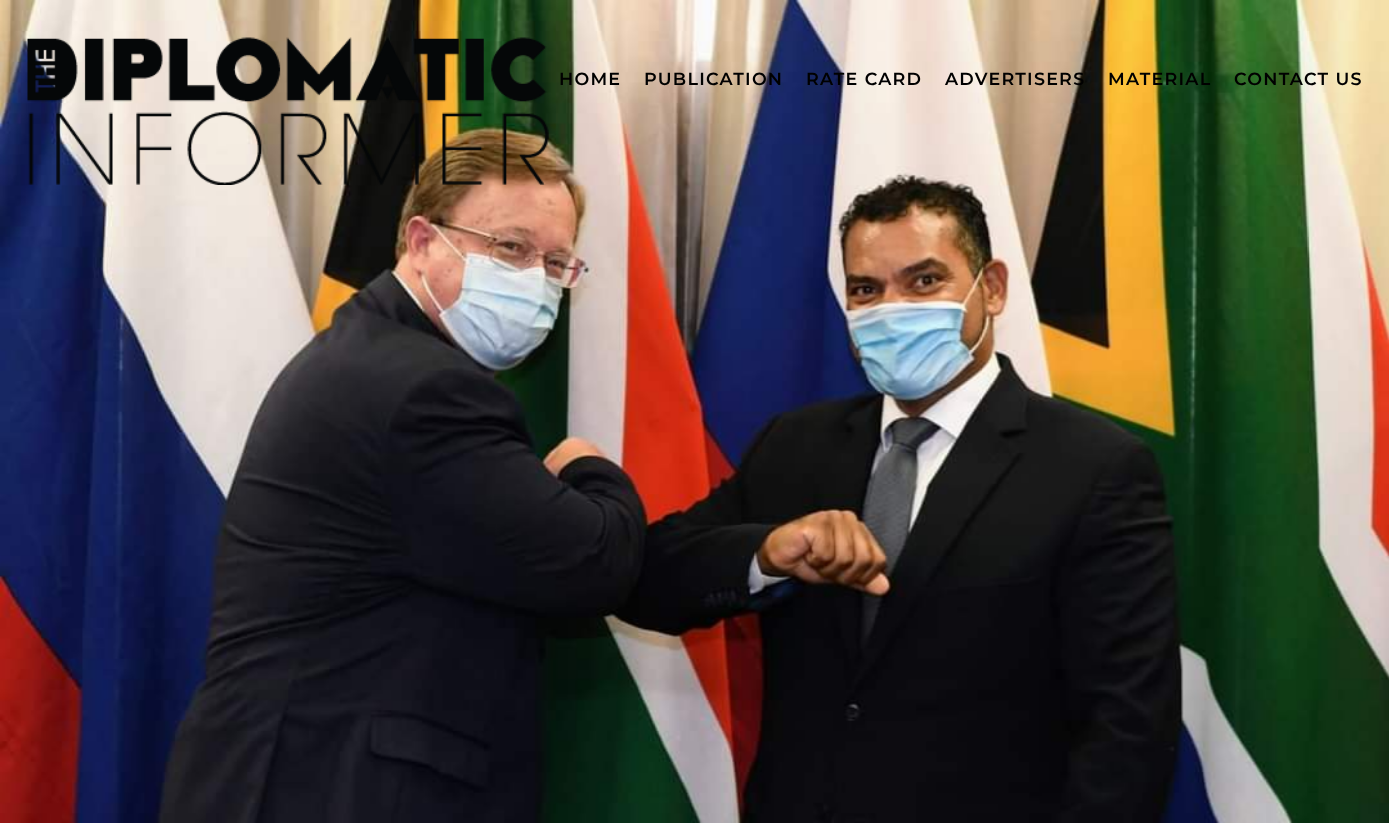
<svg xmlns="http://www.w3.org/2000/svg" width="1389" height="823">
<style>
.a{font:600 17.5px Montserrat;letter-spacing:1.25px;fill:#000}
</style>
<rect width="100%" height="100%" fill="#fff"/>
<image href="1.png" x="0" y="0" width="1389" height="823"/>
<image href="2.png" x="27" y="37" width="522" height="148"/>
<text class="a" x="559" y="85">HOME</text>
<text class="a" x="644" y="85">PUBLICATION</text>
<text class="a" x="806" y="85">RATE CARD</text>
<text class="a" x="945" y="85">ADVERTISERS</text>
<text class="a" x="1108" y="85">MATERIAL</text>
<text class="a" x="1234" y="85">CONTACT US</text>
</svg>
